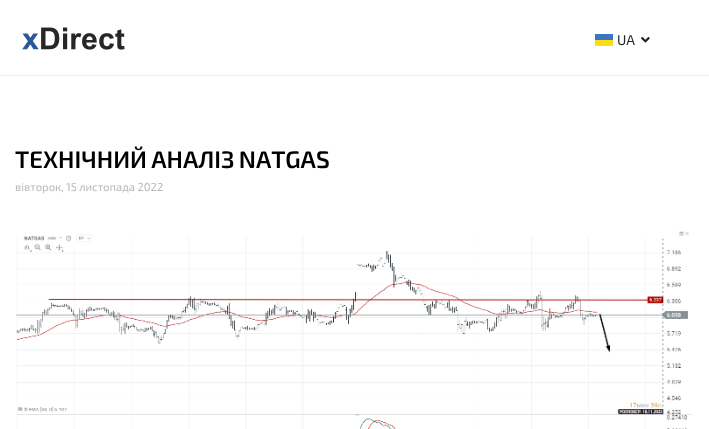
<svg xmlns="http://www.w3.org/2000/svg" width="709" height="429">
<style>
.a{font:14px 'Exo 2';fill:#212529}
.b{font:600 24px 'Exo 2';fill:#000}
.c{font:11.25px 'Exo 2';fill:#b7b7b7}
</style>
<rect width="100%" height="100%" fill="#fff"/>
<path fill="#ebedf0" d="M0 75h709v1H0z"/>
<image href="1.png" x="22" y="27" width="103" height="23"/>
<image href="2.png" x="595" y="34" width="18" height="12"/>
<image href="3.png" x="641" y="37" width="9" height="6"/>
<image href="4.png" x="16" y="231" width="677" height="198"/>
<text class="a" x="617" y="45">UA</text>
<text class="b" x="15" y="168" word-spacing="-1">ТЕХНІЧНИЙ АНАЛІЗ NATGAS</text>
<text class="c" x="15" y="191">вівторок, 15 листопада 2022</text>
</svg>
